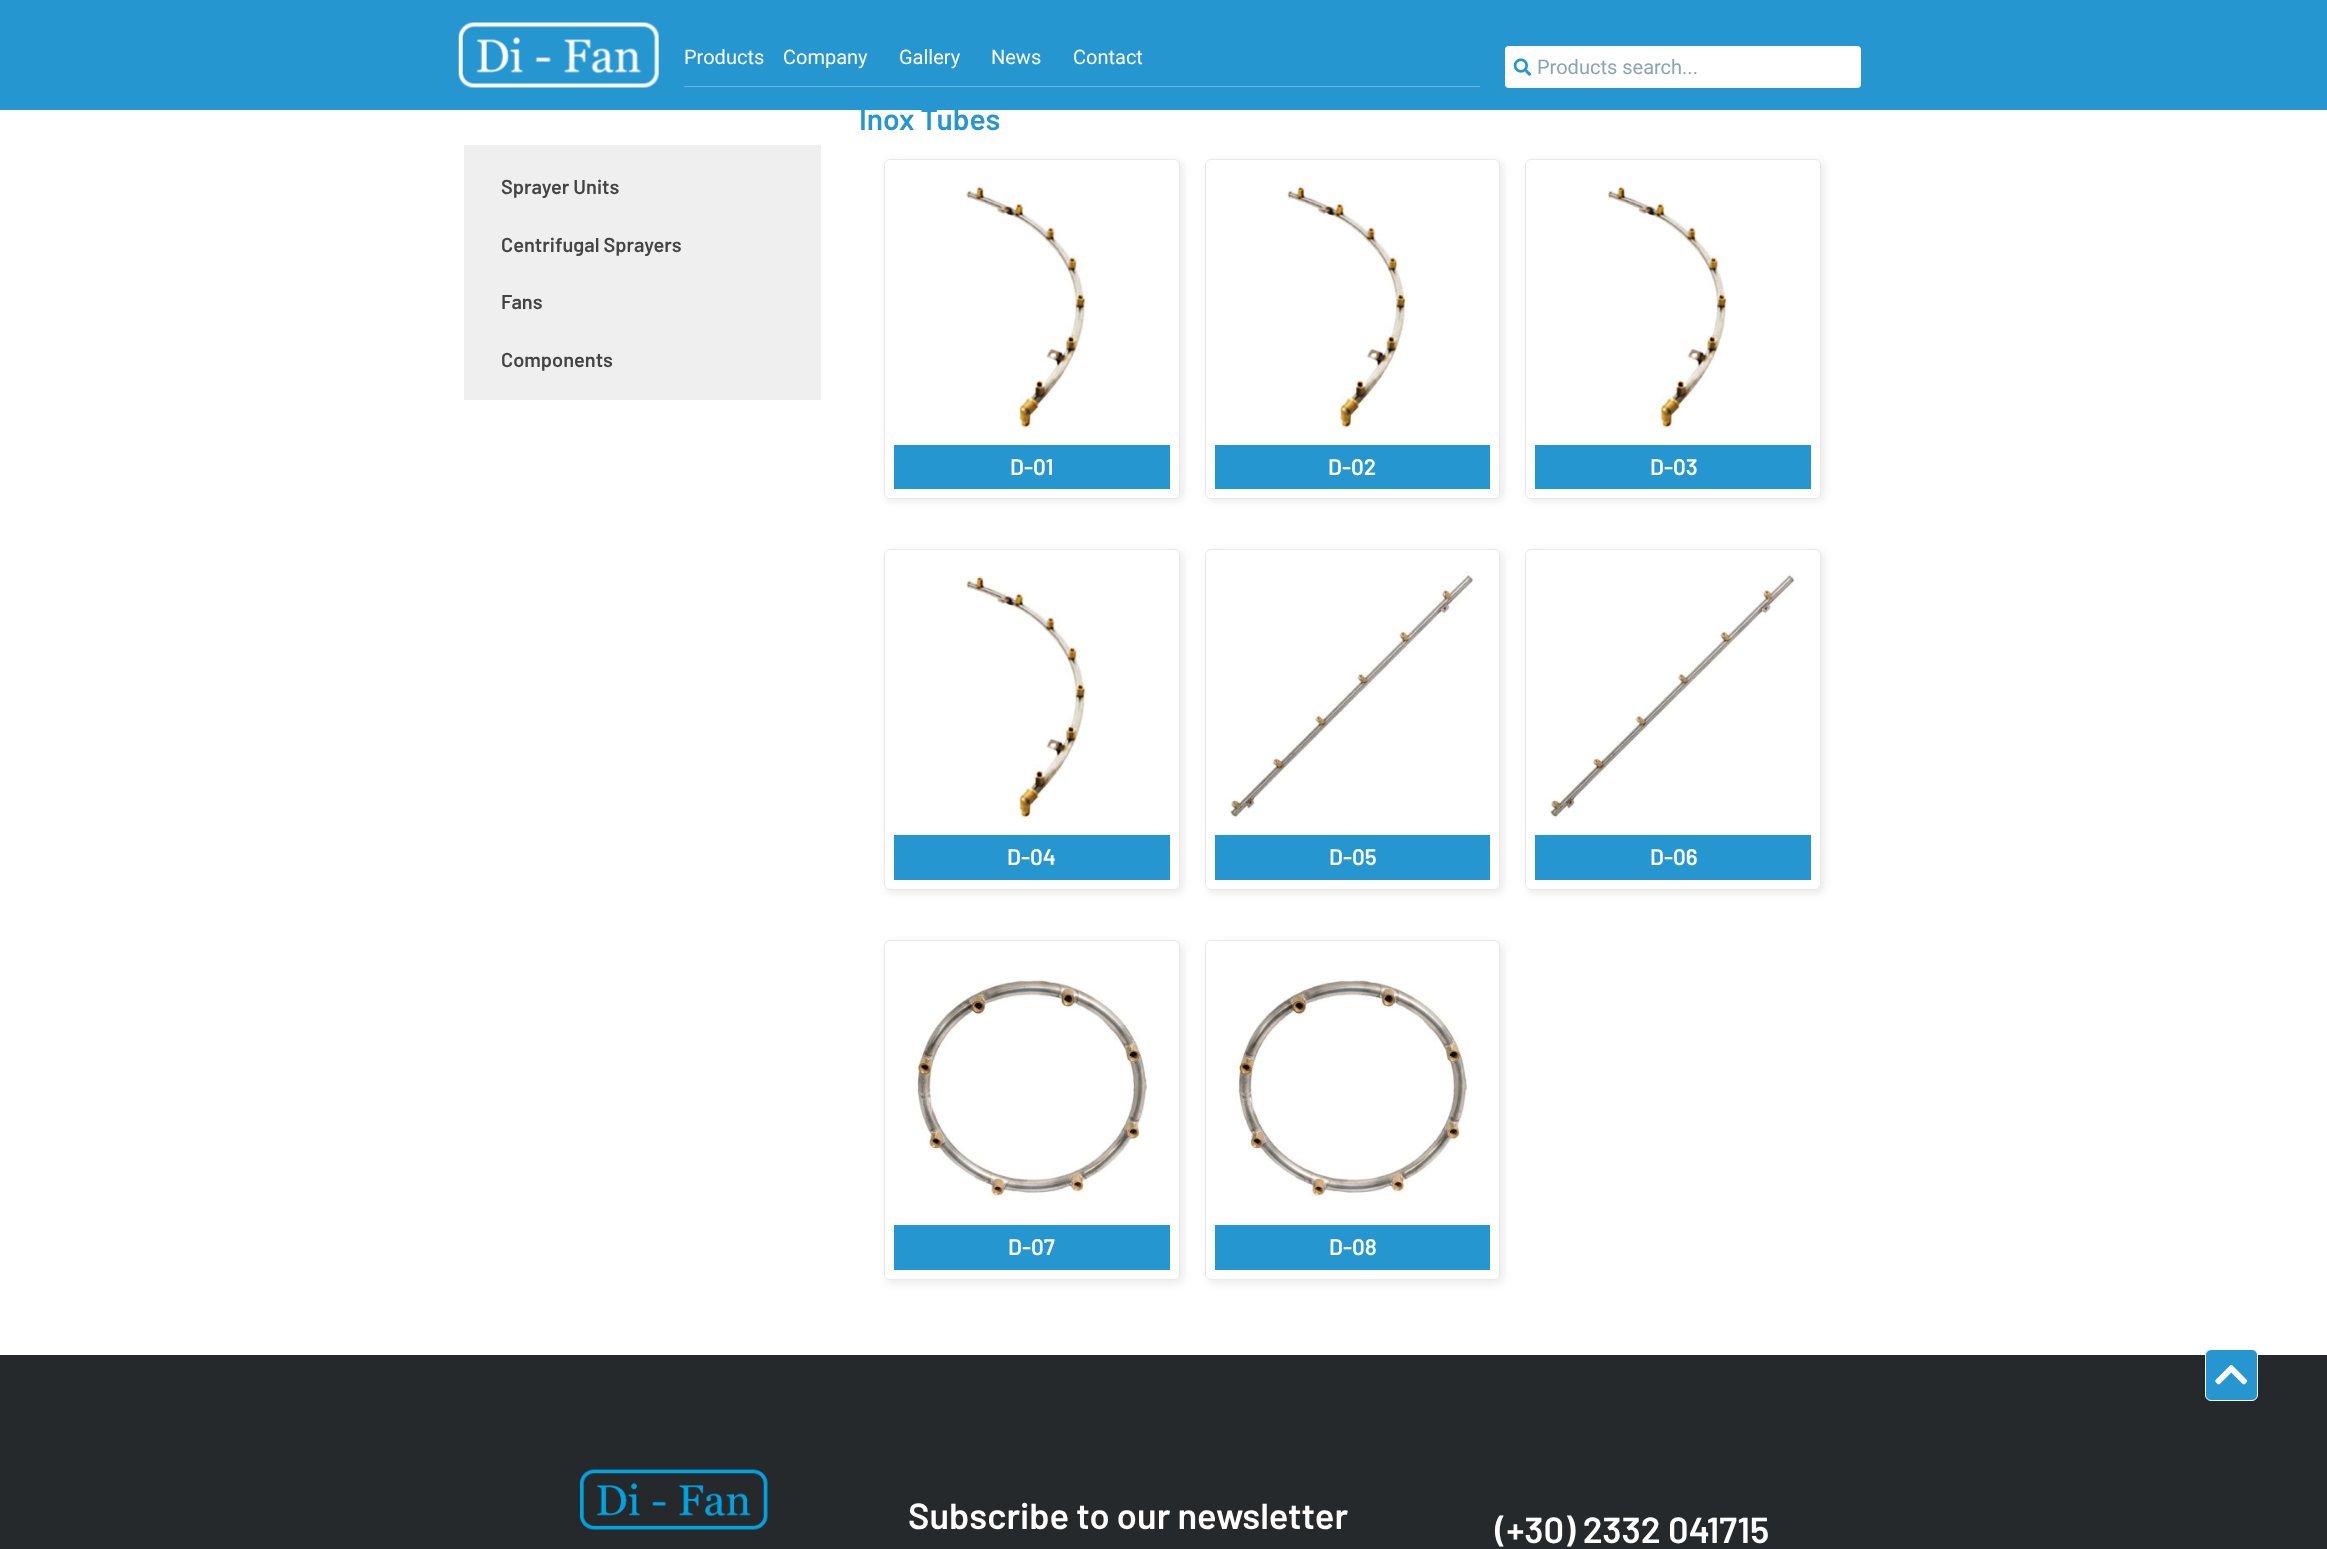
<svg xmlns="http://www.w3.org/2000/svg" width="2327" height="1549">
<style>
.a{font:20px Roboto;fill:#fff}
.b{font:20px Roboto;fill:#89a5b4}
.c{font:600 20px Barlow;fill:#444}
.d{font:600 30px Barlow;fill:#2696d0}
.e{font:600 22.5px Barlow;fill:#fff}
.f{font:600 36.25px Barlow;fill:#fff}
</style>
<defs>
<clipPath id="clip1"><path d="M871 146h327v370h-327zm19 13h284c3.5 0 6 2.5 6 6v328c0 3.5-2.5 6-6 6h-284c-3.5 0-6-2.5-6-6v-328c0-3.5 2.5-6 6-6z" clip-rule="evenodd"/></clipPath>
<clipPath id="clip2"><path d="M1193 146h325v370h-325zm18 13h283c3.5 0 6 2.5 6 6v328c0 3.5-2.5 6-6 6h-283c-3.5 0-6-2.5-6-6v-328c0-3.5 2.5-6 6-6z" clip-rule="evenodd"/></clipPath>
<clipPath id="clip3"><path d="M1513 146h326v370h-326zm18 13h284c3.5 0 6 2.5 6 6v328c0 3.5-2.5 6-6 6h-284c-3.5 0-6-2.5-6-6v-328c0-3.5 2.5-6 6-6z" clip-rule="evenodd"/></clipPath>
<clipPath id="clip4"><path d="M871 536h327v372h-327zm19 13h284c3.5 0 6 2.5 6 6v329c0 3.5-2.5 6-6 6h-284c-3.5 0-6-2.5-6-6v-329c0-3.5 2.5-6 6-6z" clip-rule="evenodd"/></clipPath>
<clipPath id="clip5"><path d="M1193 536h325v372h-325zm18 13h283c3.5 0 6 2.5 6 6v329c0 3.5-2.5 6-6 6h-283c-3.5 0-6-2.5-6-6v-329c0-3.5 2.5-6 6-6z" clip-rule="evenodd"/></clipPath>
<clipPath id="clip6"><path d="M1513 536h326v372h-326zm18 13h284c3.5 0 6 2.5 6 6v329c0 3.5-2.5 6-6 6h-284c-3.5 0-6-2.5-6-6v-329c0-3.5 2.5-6 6-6z" clip-rule="evenodd"/></clipPath>
<clipPath id="clip7"><path d="M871 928h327v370h-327zm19 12h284c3.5 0 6 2.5 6 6v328c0 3.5-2.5 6-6 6h-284c-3.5 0-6-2.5-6-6v-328c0-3.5 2.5-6 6-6z" clip-rule="evenodd"/></clipPath>
<clipPath id="clip8"><path d="M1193 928h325v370h-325zm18 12h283c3.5 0 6 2.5 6 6v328c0 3.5-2.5 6-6 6h-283c-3.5 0-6-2.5-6-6v-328c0-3.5 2.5-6 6-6z" clip-rule="evenodd"/></clipPath>
</defs>
<rect width="100%" height="100%" fill="#fff"/>
<path fill="#2696d0" d="M0 0h2327v110H0z"/>
<image href="1.png" x="458" y="22" width="201" height="66"/>
<path fill="#69b7df" d="M684 86h796v1H684z"/>
<rect fill="#fff" x="1505" y="46" width="356" height="42" rx="4"/>
<image href="2.png" x="1513" y="58" width="19" height="18"/>
<path fill="#efefef" d="M464 145h357v255H464z"/>
<g clip-path="url(#clip1)">
<rect fill="#25292b1a" filter="blur(4.5px)" x="886" y="161" width="297" height="340" rx="6"/>
</g>
<rect fill="none" stroke="#25292b1a" x="884.5" y="159.5" width="295" height="339" rx="5.5"/>
<image href="3.png" x="966" y="186" width="121" height="243"/>
<path fill="#2696d0" d="M894 445h276v44H894z"/>
<g clip-path="url(#clip2)">
<rect fill="#25292b1a" filter="blur(4.5px)" x="1208" y="161" width="295" height="340" rx="6"/>
</g>
<rect fill="none" stroke="#25292b1a" x="1205.5" y="159.5" width="294" height="339" rx="5.5"/>
<image href="4.png" x="1287" y="186" width="120" height="243"/>
<path fill="#2696d0" d="M1215 445h275v44H1215z"/>
<g clip-path="url(#clip3)">
<rect fill="#25292b1a" filter="blur(4.5px)" x="1528" y="161" width="296" height="340" rx="6"/>
</g>
<rect fill="none" stroke="#25292b1a" x="1525.5" y="159.5" width="295" height="339" rx="5.5"/>
<image href="5.png" x="1607" y="186" width="121" height="243"/>
<path fill="#2696d0" d="M1535 445h276v44H1535z"/>
<g clip-path="url(#clip4)">
<rect fill="#25292b1a" filter="blur(4.5px)" x="886" y="551" width="297" height="342" rx="6"/>
</g>
<rect fill="none" stroke="#25292b1a" x="884.5" y="549.5" width="295" height="340" rx="5.5"/>
<image href="3.png" x="966" y="576" width="121" height="243"/>
<path fill="#2696d0" d="M894 835h276v45H894z"/>
<g clip-path="url(#clip5)">
<rect fill="#25292b1a" filter="blur(4.5px)" x="1208" y="551" width="295" height="342" rx="6"/>
</g>
<rect fill="none" stroke="#25292b1a" x="1205.5" y="549.5" width="294" height="340" rx="5.5"/>
<image href="6.png" x="1227" y="571" width="247" height="248"/>
<path fill="#2696d0" d="M1215 835h275v45H1215z"/>
<g clip-path="url(#clip6)">
<rect fill="#25292b1a" filter="blur(4.5px)" x="1528" y="551" width="296" height="342" rx="6"/>
</g>
<rect fill="none" stroke="#25292b1a" x="1525.5" y="549.5" width="295" height="340" rx="5.5"/>
<image href="7.png" x="1547" y="573" width="248" height="246"/>
<path fill="#2696d0" d="M1535 835h276v45H1535z"/>
<g clip-path="url(#clip7)">
<rect fill="#25292b1a" filter="blur(4.5px)" x="886" y="943" width="297" height="340" rx="6"/>
</g>
<rect fill="none" stroke="#25292b1a" x="884.5" y="940.5" width="295" height="339" rx="5.5"/>
<image href="8.png" x="913" y="979" width="235" height="217"/>
<path fill="#2696d0" d="M894 1225h276v45H894z"/>
<g clip-path="url(#clip8)">
<rect fill="#25292b1a" filter="blur(4.5px)" x="1208" y="943" width="295" height="340" rx="6"/>
</g>
<rect fill="none" stroke="#25292b1a" x="1205.5" y="940.5" width="294" height="339" rx="5.5"/>
<image href="9.png" x="1234" y="979" width="234" height="217"/>
<path fill="#2696d0" d="M1215 1225h275v45H1215z"/>
<path fill="#25292b" d="M0 1355h2327v194H0z"/>
<rect fill="#2696d0" stroke="#fff" x="2205.5" y="1349.5" width="52" height="51" rx="5.5"/>
<image href="10.png" x="2215" y="1365" width="33" height="20"/>
<image href="11.png" x="580" y="1469" width="188" height="61"/>
<text class="a" x="684" y="64">Products</text>
<text class="a" x="783" y="64">Company</text>
<text class="a" x="899" y="64">Gallery</text>
<text class="a" x="991" y="64">News</text>
<text class="a" x="1073" y="64">Contact</text>
<text class="b" x="1537" y="74">Products search...</text>
<text class="c" x="501" y="194">Sprayer Units</text>
<text class="c" x="501" y="252">Centrifugal Sprayers</text>
<text class="c" x="501" y="309">Fans</text>
<text class="c" x="501" y="367">Components</text>
<text class="d" x="859" y="130">Inox Tubes</text>
<text class="e" x="1010" y="475">D-01</text>
<text class="e" x="1328" y="475">D-02</text>
<text class="e" x="1650" y="475">D-03</text>
<text class="e" x="1007" y="865">D-04</text>
<text class="e" x="1329" y="865">D-05</text>
<text class="e" x="1650" y="865">D-06</text>
<text class="e" x="1008" y="1255">D-07</text>
<text class="e" x="1329" y="1255">D-08</text>
<text class="f" x="908" y="1529">Subscribe to our newsletter</text>
<text class="f" x="1495" y="1543">(+30) 2332 041715</text>
</svg>
